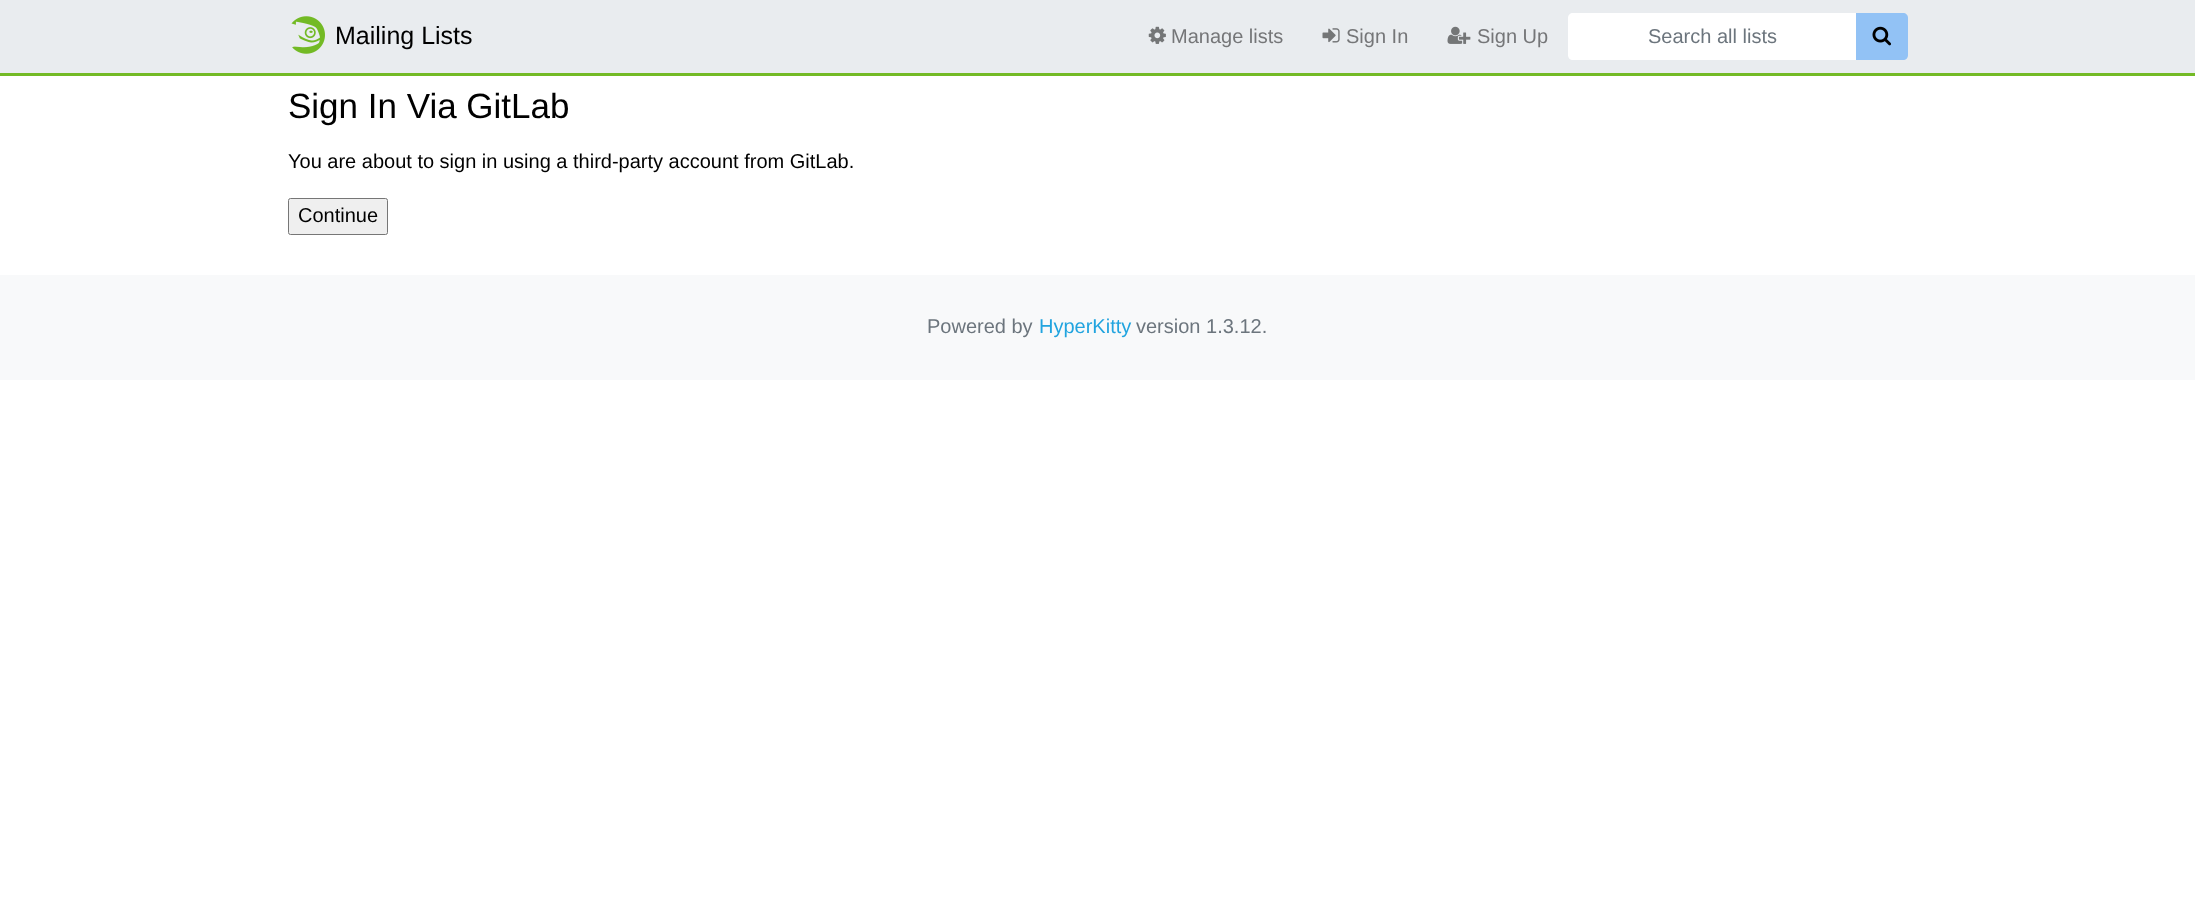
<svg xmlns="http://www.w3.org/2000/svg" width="2195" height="915">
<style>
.a{font:25px Liberation Sans;fill:#000}
.b{font:20px Liberation Sans;fill:#757678}
.c{font:20px Liberation Sans;fill:#6c757d}
.d{font:35px Liberation Sans;fill:#000}
.e{font:20px Liberation Sans;fill:#000}
.f{font:20px Liberation Sans;fill:#21a4df}
</style>
<rect width="100%" height="100%" fill="#fff"/>
<path fill="#e9ecef" d="M0 0h2195v73H0z"/>
<path fill="#73ba25" d="M0 73h2195v3H0z"/>
<image href="1.png" x="291" y="16" width="34" height="38"/>
<image href="2.png" x="1148" y="26" width="18" height="18"/>
<image href="3.png" x="1322" y="28" width="18" height="15"/>
<image href="4.png" x="1447" y="26" width="24" height="18"/>
<path fill="#fff" d="M1573 13h283v47h-283c-3 0-5-2-5-5v-37c0-3 2-5 5-5z"/>
<path fill="#92c2f5" d="M1856 13h47c3 0 5 2 5 5v37c0 3-2 5-5 5h-47z"/>
<image href="5.png" x="1872" y="26" width="19" height="20"/>
<rect fill="#efefef" stroke="#767676" x="288.5" y="198.5" width="99" height="36" rx="2"/>
<path fill="#f8f9fa" d="M0 275h2195v105H0z"/>
<text class="a" x="335" y="44">Mailing Lists</text>
<text class="b" x="1171" y="43">Manage lists</text>
<text class="b" x="1346" y="43">Sign In</text>
<text class="b" x="1477" y="43">Sign Up</text>
<text class="c" x="1648" y="43">Search all lists</text>
<text class="d" x="288" y="118">Sign In Via GitLab</text>
<text class="e" x="288" y="168">You are about to sign in using a third-party account from GitLab.</text>
<text class="e" x="298" y="222">Continue</text>
<text class="c" x="927" y="333">Powered by</text>
<text class="f" x="1039" y="333">HyperKitty</text>
<text class="c" x="1136" y="333">version 1.3.12.</text>
</svg>
